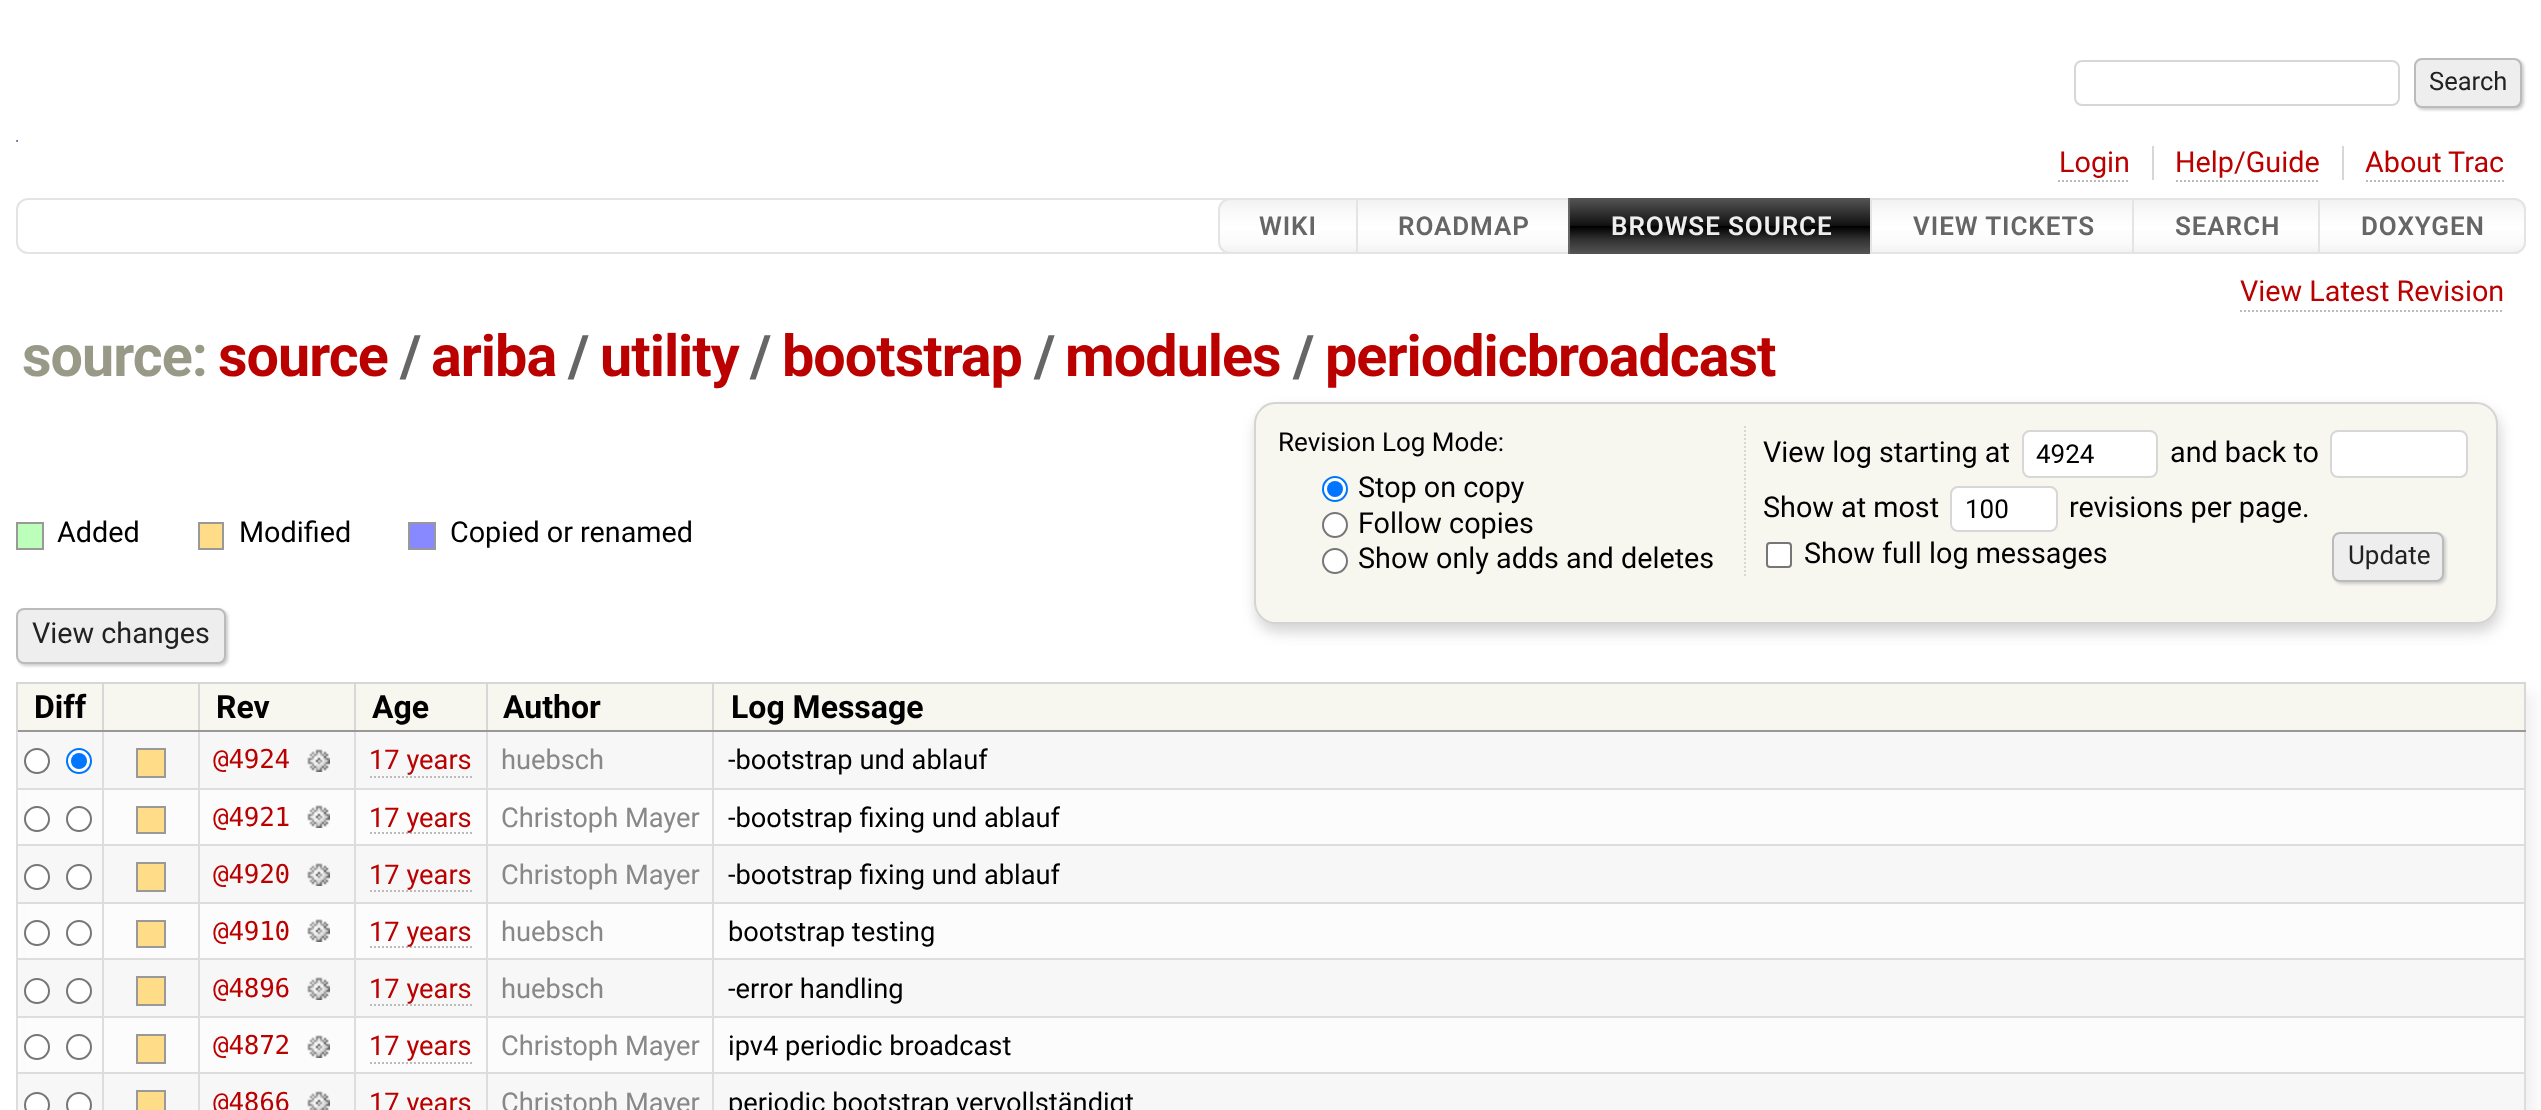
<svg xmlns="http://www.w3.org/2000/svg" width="2541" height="1110">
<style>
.a{font:25.5px Roboto;fill:#222}
.b{font:28.75px Roboto;fill:#b00}
.c{font:600 26px Roboto;letter-spacing:0.9px;fill:#666}
.d{font:600 26px Roboto;letter-spacing:0.9px;fill:#eee}
.e{font:bold 57.5px Roboto;letter-spacing:-1px;fill:#998}
.f{font:bold 57.5px Roboto;letter-spacing:-1px;fill:#b00}
.g{font:bold 57.5px Roboto;letter-spacing:-1px;fill:#666}
.h{font:28.75px Roboto;fill:#000}
.i{font:26px Roboto;fill:#000}
.j{font:26px Roboto;fill:#222}
.k{font:28.75px Roboto;fill:#222}
.l{font:bold 32px Roboto;fill:#000}
.m{font:26px DejaVu Sans Mono;letter-spacing:-0.25px;fill:#b00}
.n{font:27.25px Roboto;fill:#b00}
.o{font:27.25px Roboto;fill:#888}
.p{font:27.25px Roboto;fill:#000}
</style>
<defs>
<clipPath id="clip1"><path d="M1230 198h128v56h-128c-6.5 0-12-5.5-12-12v-32c0-6.5 5.5-12 12-12z"/></clipPath>
<linearGradient id="g1" gradientUnits="userSpaceOnUse" x1="1288" y1="200" x2="1288" y2="252"><stop offset="0" stop-color="#f2f2f2"/><stop offset="0.25" stop-color="#fafafa"/><stop offset="0.49" stop-color="#fefefe"/><stop offset="0.51" stop-color="#fff"/><stop offset="0.85" stop-color="#fafafa"/><stop offset="1" stop-color="#f2f2f2"/></linearGradient>
<linearGradient id="g2" gradientUnits="userSpaceOnUse" x1="1464" y1="200" x2="1464" y2="252"><stop offset="0" stop-color="#f2f2f2"/><stop offset="0.25" stop-color="#fafafa"/><stop offset="0.49" stop-color="#fefefe"/><stop offset="0.51" stop-color="#fff"/><stop offset="0.85" stop-color="#fafafa"/><stop offset="1" stop-color="#f2f2f2"/></linearGradient>
<linearGradient id="g3" gradientUnits="userSpaceOnUse" x1="1721" y1="198" x2="1721" y2="254"><stop offset="0" stop-color="#555"/><stop offset="0.25" stop-color="#333"/><stop offset="0.49" stop-color="#111"/><stop offset="0.51" stop-color="#000"/><stop offset="0.75" stop-color="#333"/><stop offset="1" stop-color="#555"/></linearGradient>
<linearGradient id="g4" gradientUnits="userSpaceOnUse" x1="2003" y1="200" x2="2003" y2="252"><stop offset="0" stop-color="#f2f2f2"/><stop offset="0.25" stop-color="#fafafa"/><stop offset="0.49" stop-color="#fefefe"/><stop offset="0.51" stop-color="#fff"/><stop offset="0.85" stop-color="#fafafa"/><stop offset="1" stop-color="#f2f2f2"/></linearGradient>
<linearGradient id="g5" gradientUnits="userSpaceOnUse" x1="2227" y1="200" x2="2227" y2="252"><stop offset="0" stop-color="#f2f2f2"/><stop offset="0.25" stop-color="#fafafa"/><stop offset="0.49" stop-color="#fefefe"/><stop offset="0.51" stop-color="#fff"/><stop offset="0.85" stop-color="#fafafa"/><stop offset="1" stop-color="#f2f2f2"/></linearGradient>
<clipPath id="clip2"><path d="M2318 198h196c6.5 0 12 5.5 12 12v32c0 6.5-5.5 12-12 12h-196z"/></clipPath>
<linearGradient id="g6" gradientUnits="userSpaceOnUse" x1="2422" y1="200" x2="2422" y2="252"><stop offset="0" stop-color="#f2f2f2"/><stop offset="0.25" stop-color="#fafafa"/><stop offset="0.49" stop-color="#fefefe"/><stop offset="0.51" stop-color="#fff"/><stop offset="0.85" stop-color="#fafafa"/><stop offset="1" stop-color="#f2f2f2"/></linearGradient>
</defs>
<rect width="100%" height="100%" fill="#fff"/>
<rect fill="none" stroke="#d7d7d7" stroke-width="2" x="2075" y="61" width="324" height="44" rx="7"/>
<rect fill="#ccc" filter="blur(1.5px)" x="2416" y="60" width="108" height="50" rx="8"/>
<rect fill="#eee" stroke="#bbb" stroke-width="2" x="2415" y="59" width="106" height="48" rx="7"/>
<image href="1.png" x="16" y="140" width="2" height="2"/>
<path fill="#d7d7d7" d="M2152 146h2v34H2152z"/>
<path fill="none" stroke="#bbb" stroke-width="2" stroke-dasharray="2 2" d="M2058 181h72"/>
<path fill="#d7d7d7" d="M2342 146h2v34H2342z"/>
<path fill="none" stroke="#bbb" stroke-width="2" stroke-dasharray="2 2" d="M2176 181h144"/>
<path fill="none" stroke="#bbb" stroke-width="2" stroke-dasharray="2 2" d="M2366 181h138"/>
<rect fill="none" stroke="#e4e4e4" stroke-width="2" x="17" y="199" width="2508" height="54" rx="11"/>
<g clip-path="url(#clip1)">
<path fill="url(#g1)" d="M1218 200h138v52H1218z"/>
</g>
<path fill="none" stroke="#e4e4e4" stroke-width="2" d="M1230 199h127v54h-127c-6 0-11-5-11-11v-32c0-6 5-11 11-11z"/>
<path fill="url(#g2)" d="M1358 200h210v52H1358z"/>
<path fill="none" stroke="#e4e4e4" stroke-width="2" d="M1357 199h214v54H1357z"/>
<path fill="none" stroke="#666" stroke-width="2" d="M1569 199h304v54H1569z"/>
<path fill="url(#g3)" d="M1570 198h300v56H1570z"/>
<path fill="url(#g4)" d="M1872 200h260v52H1872z"/>
<path fill="none" stroke="#e4e4e4" stroke-width="2" d="M1871 199h264v54H1871z"/>
<path fill="url(#g5)" d="M2134 200h184v52H2134z"/>
<path fill="none" stroke="#e4e4e4" stroke-width="2" d="M2133 199h188v54H2133z"/>
<g clip-path="url(#clip2)">
<path fill="url(#g6)" d="M2320 200h206v52H2320z"/>
</g>
<path fill="none" stroke="#e4e4e4" stroke-width="2" d="M2319 199h195c6 0 11 5 11 11v32c0 6-5 11-11 11h-195z"/>
<path fill="none" stroke="#bbb" stroke-width="2" stroke-dasharray="2 2" d="M2240 311h264"/>
<path fill="#bfb" stroke="#999" stroke-width="2" d="M17 523h26v26H17z"/>
<path fill="#fd8" stroke="#999" stroke-width="2" d="M199 523h24v26H199z"/>
<path fill="#88f" stroke="#999" stroke-width="2" d="M409 523h26v26H409z"/>
<rect fill="#d4d4d4" filter="blur(7px)" x="1256" y="410" width="1244" height="222" rx="22"/>
<rect fill="#f7f7f0" stroke="#d4d4d4" stroke-width="2" x="1255" y="403" width="1242" height="220" rx="21"/>
<path fill="none" stroke="#d7d7d7" stroke-width="2" stroke-dasharray="2 2" d="M1745 426v152"/>
<circle fill="#fff" stroke="#0075ff" stroke-width="2" cx="1335" cy="489" r="12"/>
<circle fill="#0075ff" cx="1335" cy="489" r="8"/>
<circle fill="#fff" stroke="#767676" stroke-width="2" cx="1335" cy="525" r="12"/>
<circle fill="#fff" stroke="#767676" stroke-width="2" cx="1335" cy="561" r="12"/>
<rect fill="#fff" stroke="#d7d7d7" stroke-width="2" x="2023" y="431" width="134" height="46" rx="7"/>
<rect fill="#fff" stroke="#d7d7d7" stroke-width="2" x="2331" y="431" width="136" height="46" rx="7"/>
<rect fill="#fff" stroke="#d7d7d7" stroke-width="2" x="1951" y="487" width="106" height="44" rx="7"/>
<rect fill="#fff" stroke="#767676" stroke-width="2" x="1767" y="543" width="24" height="24" rx="3"/>
<rect fill="#ccc" filter="blur(1.5px)" x="2334" y="534" width="112" height="50" rx="8"/>
<rect fill="#eee" stroke="#bbb" stroke-width="2" x="2333" y="533" width="110" height="48" rx="7"/>
<rect fill="#ccc" filter="blur(1.5px)" x="18" y="610" width="210" height="56" rx="8"/>
<rect fill="#eee" stroke="#bbb" stroke-width="2" x="17" y="609" width="208" height="54" rx="7"/>
<path fill="#f2f2f2" filter="blur(6.5px)" d="M26 692h2510v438H26z"/>
<path fill="#f7f7f0" d="M18 684h2506v46H18z"/>
<path fill="#d7d7d7" d="M712 682h1814v2H712z"/>
<path fill="#ddd" d="M16 788h2510v2H16z"/>
<path fill="#ddd" d="M16 844h2510v2H16z"/>
<path fill="#ddd" d="M16 902h2510v2H16z"/>
<path fill="#ddd" d="M16 958h2510v2H16z"/>
<path fill="#ddd" d="M16 1016h2510v2H16z"/>
<path fill="#ddd" d="M16 1072h2510v2H16z"/>
<path fill="#ddd" d="M2524 730h2v380H2524z"/>
<path fill="#d7d7d7" d="M2524 682h2v50H2524z"/>
<path fill="#f7f7f7" d="M18 732h2506v56H18z"/>
<path fill="#fcfcfc" d="M25 790h2499v54H25z"/>
<path fill="#f7f7f7" d="M18 846h2506v56H18z"/>
<path fill="#fcfcfc" d="M25 904h2499v54H25z"/>
<path fill="#f7f7f7" d="M18 960h2506v56H18z"/>
<path fill="#fcfcfc" d="M25 1018h2499v54H25z"/>
<path fill="#f7f7f7" d="M18 1074h2506v36H18z"/>
<path fill="#ddd" d="M712 730h2v380H712z"/>
<path fill="#999" d="M712 730h1814v2H712z"/>
<path fill="#d7d7d7" d="M712 682h2v50H712z"/>
<path fill="#d7d7d7" d="M486 682h228v2H486z"/>
<path fill="#ddd" d="M486 730h2v380H486z"/>
<path fill="#999" d="M486 730h228v2H486z"/>
<path fill="#d7d7d7" d="M486 682h2v50H486z"/>
<path fill="#d7d7d7" d="M354 682h134v2H354z"/>
<path fill="#ddd" d="M354 730h2v380H354z"/>
<path fill="#999" d="M354 730h134v2H354z"/>
<path fill="#d7d7d7" d="M354 682h2v50H354z"/>
<path fill="#d7d7d7" d="M198 682h158v2H198z"/>
<path fill="#ddd" d="M198 730h2v380H198z"/>
<path fill="#999" d="M198 730h158v2H198z"/>
<path fill="#d7d7d7" d="M198 682h2v50H198z"/>
<path fill="#d7d7d7" d="M102 682h98v2H102z"/>
<path fill="#ddd" d="M102 730h2v380H102z"/>
<path fill="#999" d="M102 730h98v2H102z"/>
<path fill="#d7d7d7" d="M102 682h2v50H102z"/>
<path fill="#d7d7d7" d="M16 682h88v2H16z"/>
<path fill="#ddd" d="M16 730h2v380H16z"/>
<path fill="#999" d="M16 730h88v2H16z"/>
<path fill="#d7d7d7" d="M16 682h2v50H16z"/>
<circle fill="#fff" stroke="#767676" stroke-width="2" cx="37" cy="761" r="12"/>
<circle fill="#fff" stroke="#0075ff" stroke-width="2" cx="79" cy="761" r="12"/>
<circle fill="#0075ff" cx="79" cy="761" r="8"/>
<path fill="#fd8" stroke="#999" stroke-width="2" d="M137 749h28v28H137z"/>
<image href="2.png" x="307" y="749" width="23" height="23"/>
<path fill="none" stroke="#bbb" stroke-width="2" stroke-dasharray="2 2" d="M370 777h102"/>
<circle fill="#fff" stroke="#767676" stroke-width="2" cx="37" cy="819" r="12"/>
<circle fill="#fff" stroke="#767676" stroke-width="2" cx="79" cy="819" r="12"/>
<path fill="#fd8" stroke="#999" stroke-width="2" d="M137 807h28v26H137z"/>
<image href="3.png" x="307" y="805" width="23" height="23"/>
<path fill="none" stroke="#bbb" stroke-width="2" stroke-dasharray="2 2" d="M370 833h102"/>
<circle fill="#fff" stroke="#767676" stroke-width="2" cx="37" cy="877" r="12"/>
<circle fill="#fff" stroke="#767676" stroke-width="2" cx="79" cy="877" r="12"/>
<path fill="#fd8" stroke="#999" stroke-width="2" d="M137 863h28v28H137z"/>
<image href="2.png" x="307" y="863" width="23" height="23"/>
<path fill="none" stroke="#bbb" stroke-width="2" stroke-dasharray="2 2" d="M370 891h102"/>
<circle fill="#fff" stroke="#767676" stroke-width="2" cx="37" cy="933" r="12"/>
<circle fill="#fff" stroke="#767676" stroke-width="2" cx="79" cy="933" r="12"/>
<path fill="#fd8" stroke="#999" stroke-width="2" d="M137 921h28v26H137z"/>
<image href="3.png" x="307" y="919" width="23" height="23"/>
<path fill="none" stroke="#bbb" stroke-width="2" stroke-dasharray="2 2" d="M370 947h102"/>
<circle fill="#fff" stroke="#767676" stroke-width="2" cx="37" cy="991" r="12"/>
<circle fill="#fff" stroke="#767676" stroke-width="2" cx="79" cy="991" r="12"/>
<path fill="#fd8" stroke="#999" stroke-width="2" d="M137 977h28v28H137z"/>
<image href="2.png" x="307" y="977" width="23" height="23"/>
<path fill="none" stroke="#bbb" stroke-width="2" stroke-dasharray="2 2" d="M370 1005h102"/>
<circle fill="#fff" stroke="#767676" stroke-width="2" cx="37" cy="1047" r="12"/>
<circle fill="#fff" stroke="#767676" stroke-width="2" cx="79" cy="1047" r="12"/>
<path fill="#fd8" stroke="#999" stroke-width="2" d="M137 1035h28v28H137z"/>
<image href="3.png" x="307" y="1035" width="23" height="23"/>
<path fill="none" stroke="#bbb" stroke-width="2" stroke-dasharray="2 2" d="M370 1063h102"/>
<circle fill="#fff" stroke="#767676" stroke-width="2" cx="37" cy="1105" r="12"/>
<circle fill="#fff" stroke="#767676" stroke-width="2" cx="79" cy="1105" r="12"/>
<path fill="#fd8" stroke="#999" stroke-width="2" d="M137 1091h28v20H137z"/>
<image href="4.png" x="307" y="1091" width="23" height="19"/>
<text class="a" x="2429" y="90">Search</text>
<text class="b" x="2059" y="172">Login</text>
<text class="b" x="2175" y="172">Help/Guide</text>
<text class="b" x="2365" y="172">About Trac</text>
<text class="c" x="1259" y="235">WIKI</text>
<text class="c" x="1398" y="235">ROADMAP</text>
<text class="d" x="1611" y="235">BROWSE SOURCE</text>
<text class="c" x="1913" y="235">VIEW TICKETS</text>
<text class="c" x="2175" y="235">SEARCH</text>
<text class="c" x="2361" y="235">DOXYGEN</text>
<text class="b" x="2240" y="301">View Latest Revision</text>
<text class="e" x="22" y="376">source:</text>
<text class="f" x="218" y="376">source</text>
<text class="g" x="400" y="376">/</text>
<text class="f" x="431" y="376">ariba</text>
<text class="g" x="568" y="376">/</text>
<text class="f" x="600" y="376">utility</text>
<text class="g" x="750" y="376">/</text>
<text class="f" x="782" y="376">bootstrap</text>
<text class="g" x="1034" y="376">/</text>
<text class="f" x="1065" y="376">modules</text>
<text class="g" x="1293" y="376">/</text>
<text class="f" x="1325" y="376">periodicbroadcast</text>
<text class="h" x="57" y="542">Added</text>
<text class="h" x="239" y="542">Modified</text>
<text class="h" x="450" y="542">Copied or renamed</text>
<text class="i" x="1278" y="451">Revision Log Mode:</text>
<text class="h" x="1358" y="497">Stop on copy</text>
<text class="h" x="1358" y="533">Follow copies</text>
<text class="h" x="1358" y="568">Show only adds and deletes</text>
<text class="h" x="1763" y="462">View log starting at</text>
<text class="i" x="2036" y="463">4924</text>
<text class="h" x="2170" y="462">and back to</text>
<text class="h" x="1763" y="517">Show at most</text>
<text class="i" x="1965" y="518">100</text>
<text class="h" x="2069" y="517">revisions per page.</text>
<text class="h" x="1804" y="563">Show full log messages</text>
<text class="j" x="2348" y="564">Update</text>
<text class="k" x="32" y="643">View changes</text>
<text class="l" x="34" y="718">Diff</text>
<text class="l" x="216" y="718">Rev</text>
<text class="l" x="372" y="718">Age</text>
<text class="l" x="503" y="718">Author</text>
<text class="l" x="731" y="718">Log Message</text>
<text class="m" x="213" y="768">@4924</text>
<text class="n" x="369" y="769">17 years</text>
<text class="o" x="501" y="769">huebsch</text>
<text class="p" x="728" y="769">-bootstrap und ablauf</text>
<text class="m" x="213" y="826">@4921</text>
<text class="n" x="369" y="827">17 years</text>
<text class="o" x="501" y="827">Christoph Mayer</text>
<text class="p" x="728" y="827">-bootstrap fixing und ablauf</text>
<text class="m" x="213" y="883">@4920</text>
<text class="n" x="369" y="884">17 years</text>
<text class="o" x="501" y="884">Christoph Mayer</text>
<text class="p" x="728" y="884">-bootstrap fixing und ablauf</text>
<text class="m" x="213" y="940">@4910</text>
<text class="n" x="369" y="941">17 years</text>
<text class="o" x="501" y="941">huebsch</text>
<text class="p" x="728" y="941">bootstrap testing</text>
<text class="m" x="213" y="997">@4896</text>
<text class="n" x="369" y="998">17 years</text>
<text class="o" x="501" y="998">huebsch</text>
<text class="p" x="728" y="998">-error handling</text>
<text class="m" x="213" y="1054">@4872</text>
<text class="n" x="369" y="1055">17 years</text>
<text class="o" x="501" y="1055">Christoph Mayer</text>
<text class="p" x="728" y="1055">ipv4 periodic broadcast</text>
<text class="m" x="213" y="1111">@4866</text>
<text class="n" x="369" y="1112">17 years</text>
<text class="o" x="501" y="1112">Christoph Mayer</text>
<text class="p" x="728" y="1112">periodic bootstrap vervollständigt</text>
</svg>
